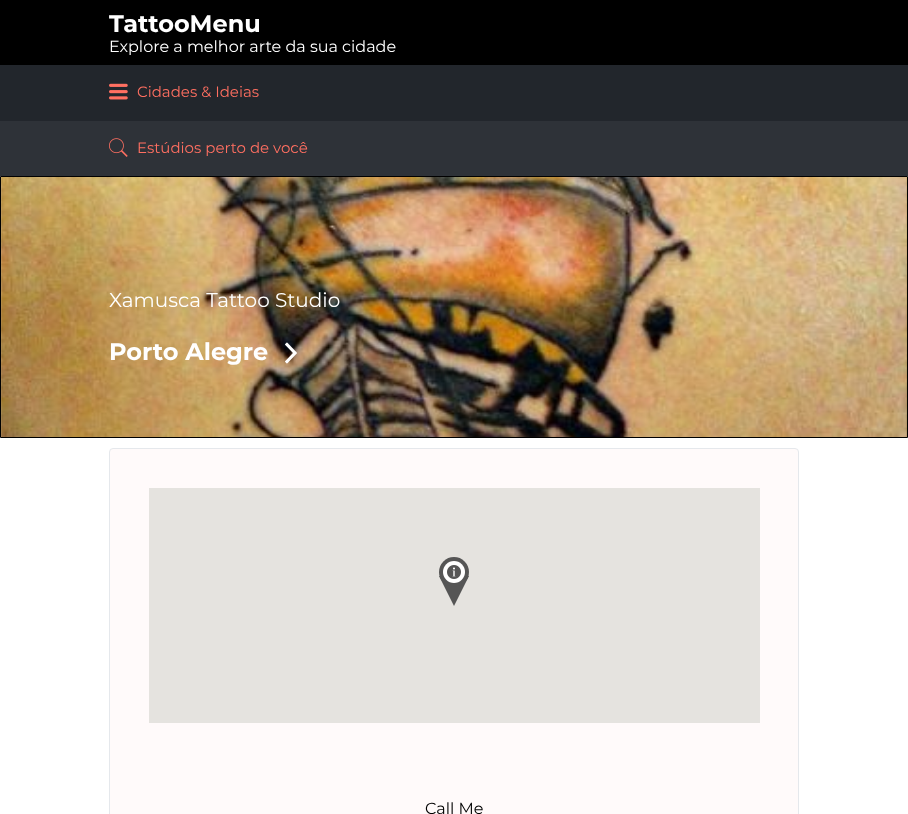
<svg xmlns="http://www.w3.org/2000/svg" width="908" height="814">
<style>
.a{font:bold 24px Montserrat;fill:#fff}
.b{font:16px Montserrat;fill:#fff}
.c{font:15px Montserrat;fill:#ff6f61}
.d{font:20px Montserrat;fill:#fff}
.e{font:16px Montserrat;fill:#000}
</style>
<rect width="100%" height="100%" fill="#fff"/>
<path fill="#000" d="M0 0h908v65H0z"/>
<path fill="#22262c" d="M0 65h908v56H0z"/>
<image href="1.png" x="109" y="83" width="19" height="17"/>
<path fill="#2e3238" d="M0 121h908v55H0z"/>
<image href="2.png" x="109" y="138" width="19" height="19"/>
<image href="3.png" x="1" y="177" width="906" height="260"/>
<path fill="none" stroke="#000" d="M0.5 176.5h907v261H0.5z"/>
<image href="4.png" x="285" y="342" width="12" height="22"/>
<rect fill="#fffafa" stroke="#e5e8ec" x="109.5" y="448.5" width="689" height="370" rx="3.5"/>
<path fill="#e5e3df" d="M149 488h611v235H149z"/>
<path fill="#555" d="M439 576h30l-15 30z"/>
<circle fill="#555" cx="454" cy="572" r="15"/>
<circle fill="#fff" cx="454" cy="572" r="11"/>
<image href="5.png" x="447" y="565" width="14" height="14"/>
<text class="a" x="109" y="32">TattooMenu</text>
<text class="b" x="109" y="52">Explore a melhor arte da sua cidade</text>
<text class="c" x="137" y="97">Cidades &amp; Ideias</text>
<text class="c" x="137" y="153">Estúdios perto de você</text>
<text class="d" x="109" y="307">Xamusca Tattoo Studio</text>
<text class="a" x="109" y="360">Porto Alegre</text>
<text class="e" x="425" y="814">Call Me</text>
</svg>
